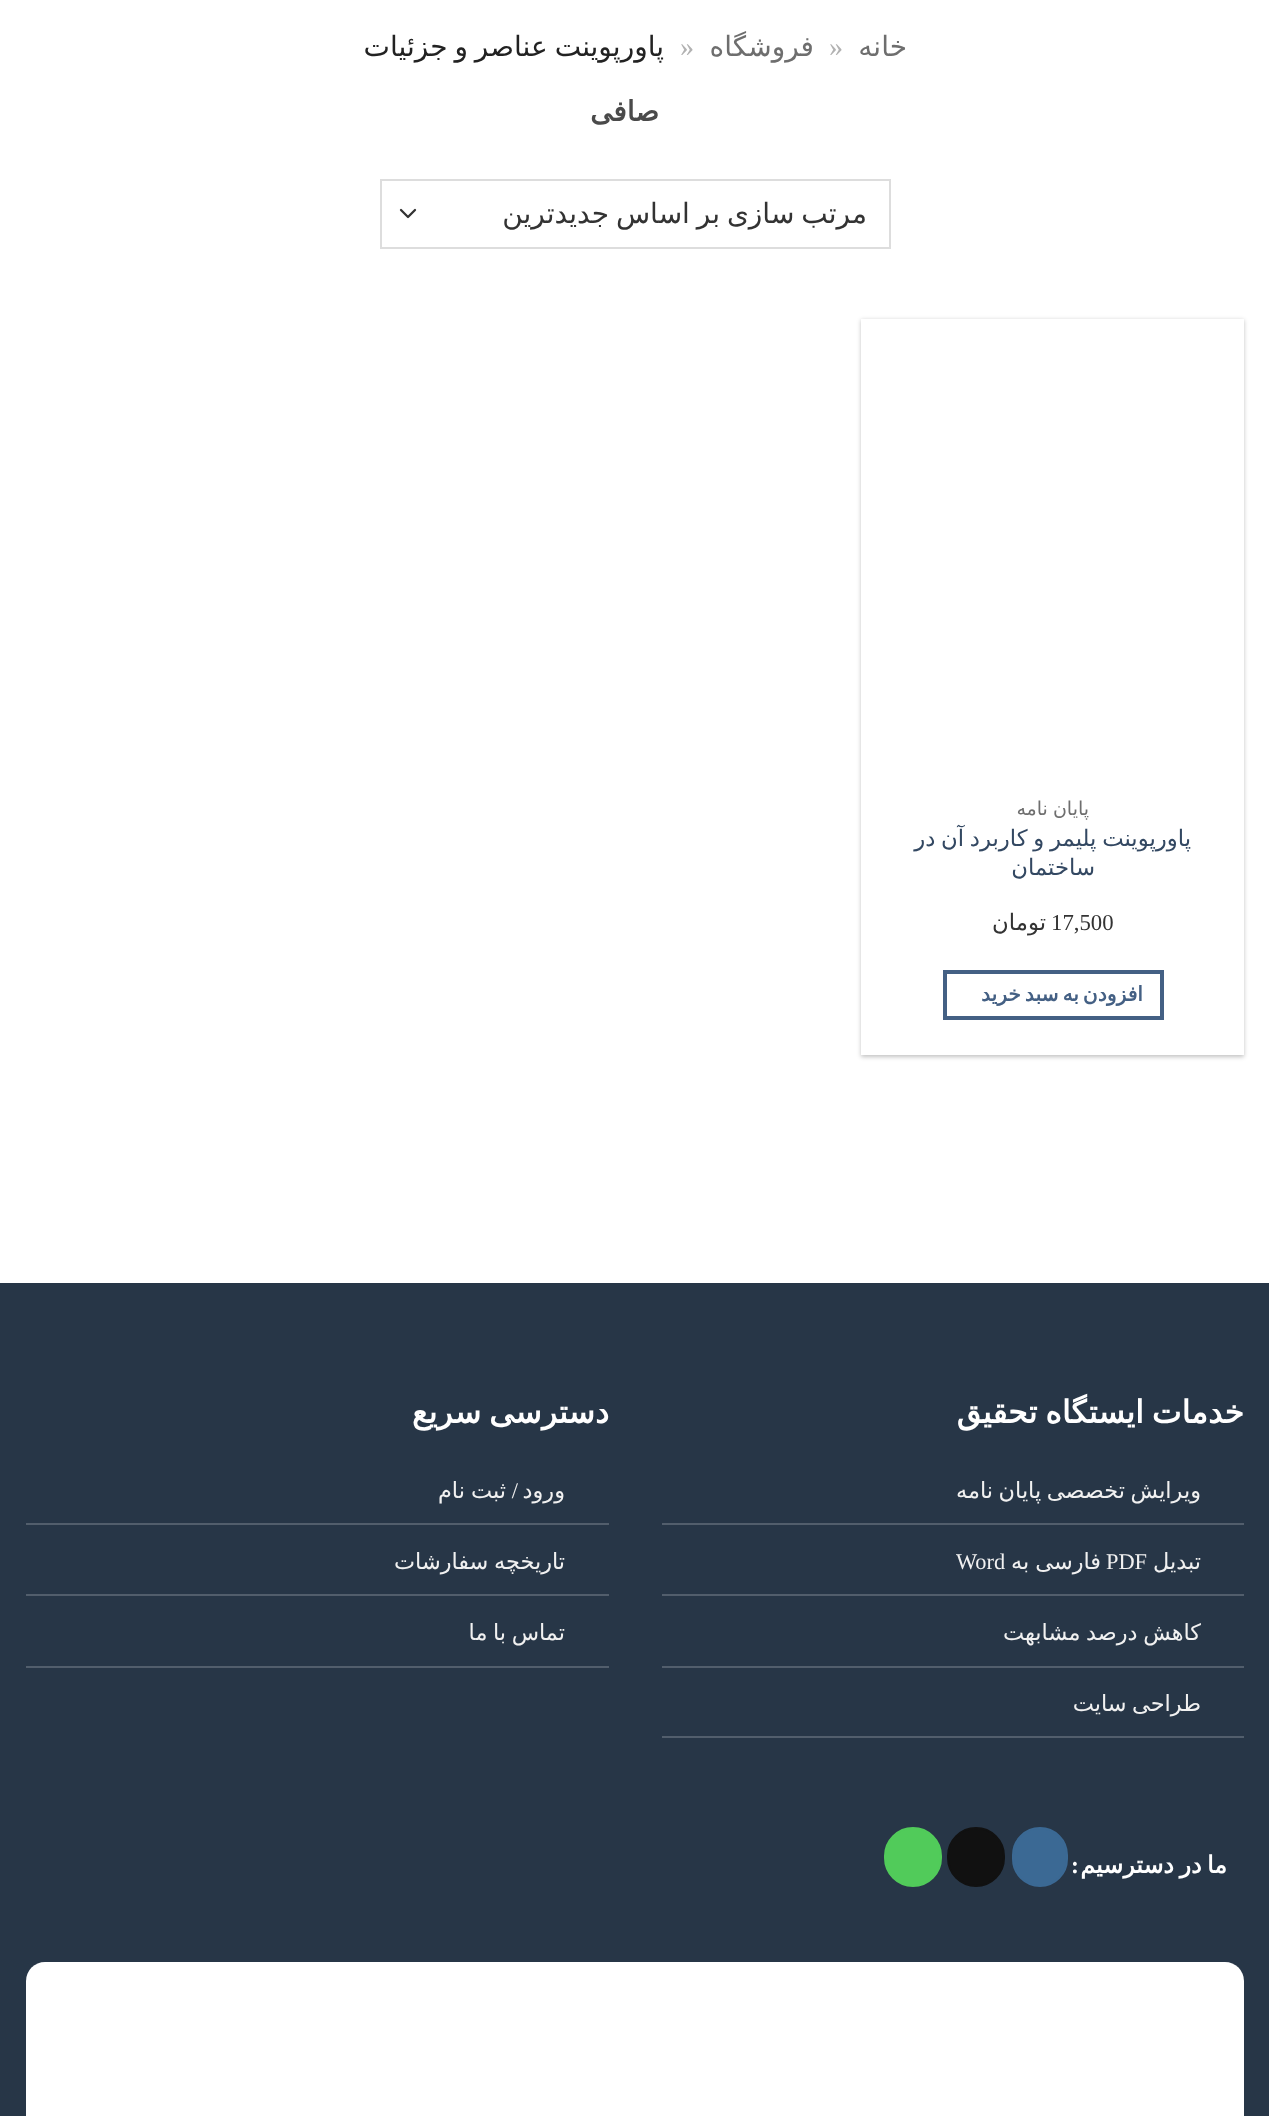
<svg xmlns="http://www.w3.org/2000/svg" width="1269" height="2116">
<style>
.a{font:28px DejaVu Sans;direction:rtl;fill:#6e6e6e}
.b{font:28px Liberation Serif;fill:#b2b2b2}
.c{font:28px DejaVu Sans;direction:rtl;fill:#222}
.d{font:bold 28px DejaVu Sans;direction:rtl;fill:#4a4a4a}
.e{font:28px DejaVu Sans;direction:rtl;fill:#333}
.f{font:19px DejaVu Sans;direction:rtl;fill:#6e6e6e}
.g{font:22.75px DejaVu Sans;direction:rtl;fill:#334862}
.h{font:22.75px Liberation Serif;fill:#333}
.i{font:22.75px DejaVu Sans;direction:rtl;fill:#333}
.j{font:bold 20.25px DejaVu Sans;letter-spacing:0.6px;direction:rtl;fill:#446084}
.k{font:bold 31.5px DejaVu Sans;direction:rtl;fill:#fff}
.l{font:22.4px DejaVu Sans;direction:rtl;fill:#f1f1f1}
.m{font:22.4px Liberation Serif;fill:#f1f1f1}
.n{font:22.4px Liberation Serif;direction:rtl;fill:#f1f1f1}
.o{font:bold 23.75px DejaVu Sans;direction:rtl;fill:#fff}
.p{font:bold 23.75px Liberation Serif;direction:rtl;fill:#fff}
</style>
<defs>
<clipPath id="clip1"><path d="M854 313h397v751h-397zm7 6h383v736h-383z" clip-rule="evenodd"/></clipPath>
</defs>
<rect width="100%" height="100%" fill="#fff"/>
<path fill="none" stroke="#333" stroke-width="2.3" stroke-linecap="round" stroke-linejoin="round" d="M401 210l7 7l7-7"/>
<path fill="none" stroke="#ddd" stroke-width="2" d="M381 180h509v68H381z"/>
<g clip-path="url(#clip1)">
<path fill="#0000003d" filter="blur(2px)" d="M861 320h383v737H861z"/>
</g>
<path fill="none" stroke="#446084" stroke-width="4" d="M945 972h217v46H945z"/>
<path fill="#273647" d="M0 1283h1269v833H0z"/>
<path fill="#525e6c" d="M662 1523h582v2H662z"/>
<path fill="#525e6c" d="M662 1594h582v2H662z"/>
<path fill="#525e6c" d="M662 1666h582v2H662z"/>
<path fill="#525e6c" d="M662 1736h582v2H662z"/>
<path fill="#525e6c" d="M26 1523h583v2H26z"/>
<path fill="#525e6c" d="M26 1594h583v2H26z"/>
<path fill="#525e6c" d="M26 1666h583v2H26z"/>
<rect fill="#3b6994" stroke="#3b6994" stroke-width="2" x="1013" y="1828" width="54" height="58" rx="27"/>
<rect fill="#111" stroke="#111" stroke-width="2" x="948" y="1828" width="56" height="58" rx="28"/>
<rect fill="#51cb5a" stroke="#51cb5a" stroke-width="2" x="885" y="1828" width="56" height="58" rx="28"/>
<rect fill="#fff" x="26" y="1962" width="1218" height="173" rx="19"/>
<text class="a" x="907" y="56">خانه</text>
<text class="b" x="829" y="56">»</text>
<text class="a" x="814" y="56">فروشگاه</text>
<text class="b" x="680" y="56">»</text>
<text class="c" x="664" y="56" word-spacing="-2">پاورپوينت عناصر و جزئيات</text>
<text class="d" x="659" y="121">صافی</text>
<text class="e" x="867" y="223" word-spacing="-2">مرتب سازی بر اساس جدیدترین</text>
<text class="f" x="1089" y="815" word-spacing="-1">پايان نامه</text>
<text class="g" x="1191" y="846" word-spacing="-1.5">پاورپوينت پليمر و كاربرد آن در</text>
<text class="g" x="1095" y="875">ساختمان</text>
<text class="h" x="1051" y="930">17,500</text>
<text class="i" x="1046" y="930">تومان</text>
<text class="j" x="1143" y="1001" word-spacing="-2.5">افزودن به سبد خرید</text>
<text class="k" x="1244" y="1423" word-spacing="-2">خدمات ایستگاه تحقیق</text>
<text class="l" x="1201" y="1498" word-spacing="-1.5">ویرایش تخصصی پایان نامه</text>
<text class="l" x="1201" y="1569">تبدیل</text>
<text class="m" x="1106" y="1569">PDF</text>
<text class="l" x="1101" y="1569" word-spacing="-1">فارسی به</text>
<text class="m" x="956" y="1569">Word</text>
<text class="l" x="1201" y="1640" word-spacing="-1.5">کاهش درصد مشابهت</text>
<text class="l" x="1201" y="1711" word-spacing="-1.5">طراحی سایت</text>
<text class="k" x="609" y="1423" word-spacing="-2">دسترسی سریع</text>
<text class="l" x="565" y="1498">ورود</text>
<text class="n" x="518" y="1498">/</text>
<text class="l" x="506" y="1498" word-spacing="-1">ثبت نام</text>
<text class="l" x="565" y="1569" word-spacing="-1.5">تاریخچه سفارشات</text>
<text class="l" x="565" y="1640" word-spacing="-1.5">تماس با ما</text>
<text class="o" x="1227" y="1873" word-spacing="-2">ما در دسترسیم</text>
<text class="p" x="1079" y="1873">:</text>
</svg>
